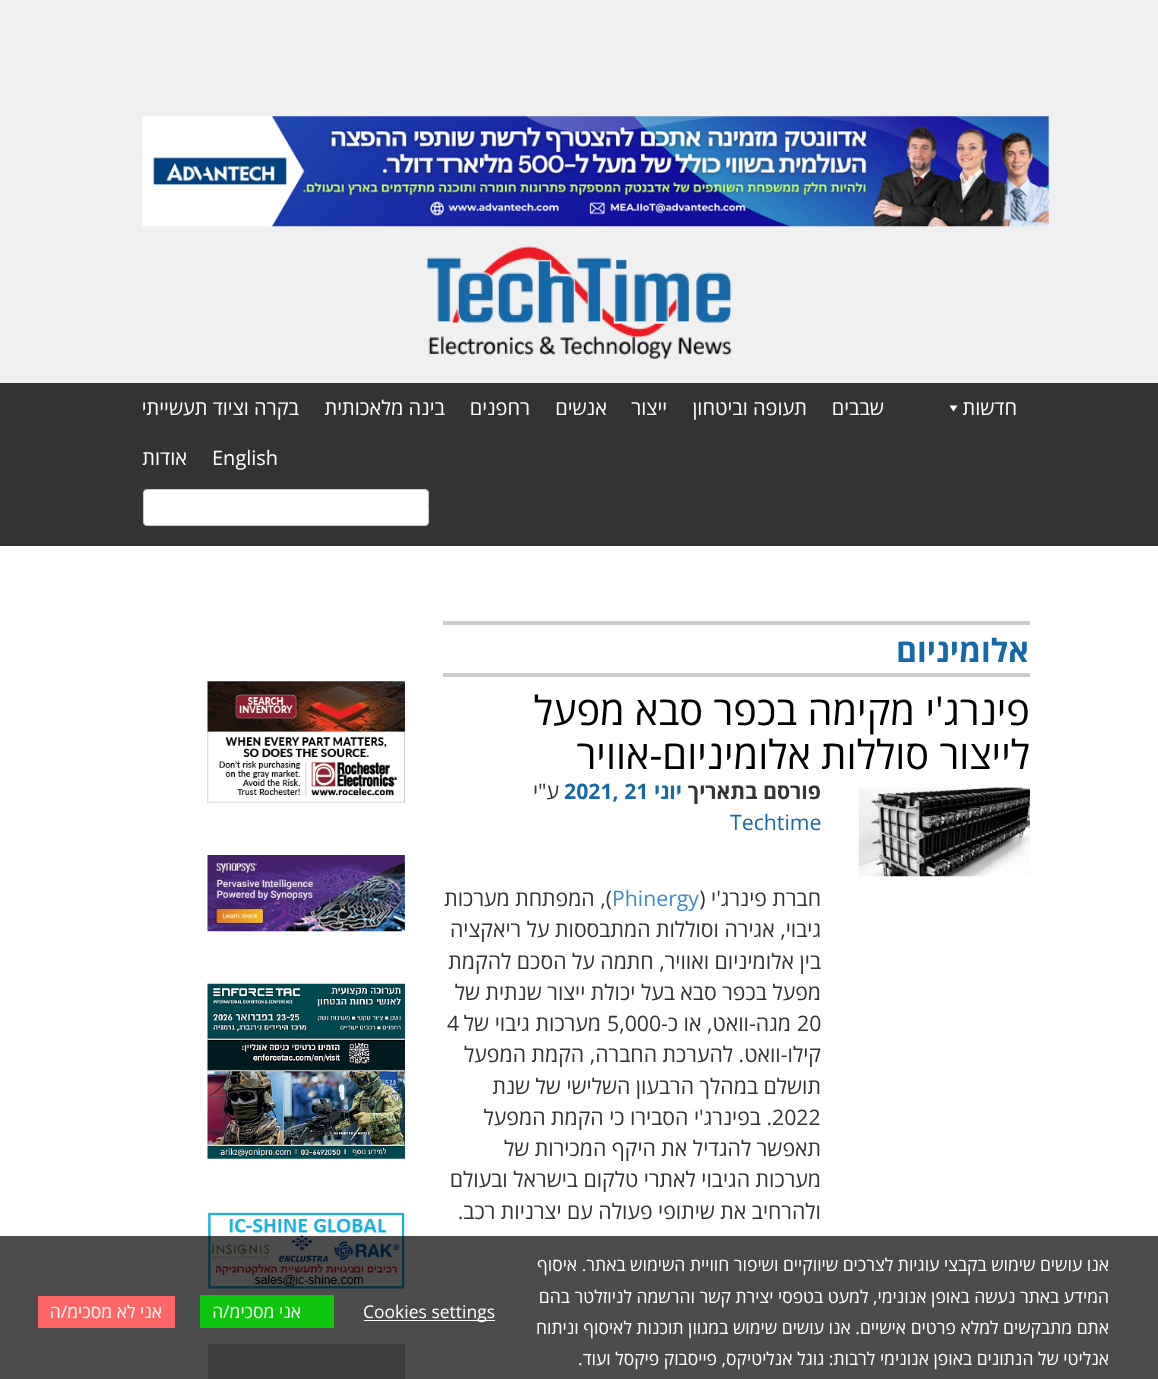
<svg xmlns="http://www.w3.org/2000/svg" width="1158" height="1379">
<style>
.a{font:20px Open Sans;direction:rtl;fill:#fff}
.b{font:20px Open Sans;fill:#fff}
.c{font:bold 32px Open Sans;direction:rtl;fill:#1669a8}
.d{font:39.8px Open Sans;direction:rtl;fill:#000}
.e{font:bold 21.25px Open Sans;direction:rtl;fill:#333}
.f{font:bold 21.25px Open Sans;direction:rtl;fill:#1669a8}
.g{font:bold 21.25px Open Sans;fill:#1669a8}
.h{font:21.25px Open Sans;direction:rtl;fill:#333}
.i{font:21.25px Open Sans;fill:#1669a8}
.j{font:21.25px Open Sans;fill:#428bca}
.k{font:21.25px Open Sans;fill:#333}
.l{font:17.5px Open Sans;direction:rtl;fill:#fff}
.m{font:17.5px Open Sans;fill:#fff}
</style>
<rect width="100%" height="100%" fill="#fff"/>
<path fill="#f0f0f0" d="M0 0h1158v383H0z"/>
<image href="1.png" x="142" y="116" width="907" height="111"/>
<image href="2.png" x="427" y="246" width="305" height="113"/>
<path fill="#333" d="M0 383h1158v163H0z"/>
<path fill="#fff" d="M957.5 405.5l-4 6l-4-6z"/>
<rect fill="#fff" stroke="#ccc" x="143.5" y="489.5" width="285" height="36" rx="3.5"/>
<image href="3.png" x="428" y="504" width="1" height="4"/>
<path fill="#ccc" d="M443 621h587v4H443z"/>
<path fill="#ccc" d="M443 673h587v4H443z"/>
<image href="4.png" x="858" y="787" width="172" height="90"/>
<image href="5.png" x="207" y="681" width="198" height="122"/>
<image href="6.png" x="207" y="855" width="198" height="77"/>
<image href="7.png" x="207" y="983" width="198" height="176"/>
<image href="8.png" x="208" y="1212" width="197" height="77"/>
<path fill="#ccc" d="M208 1344h197v35H208z"/>
<path fill="#000000b3" d="M0 1236h1158v143H0z"/>
<path fill="#fff" d="M364 1320h131v1H364z"/>
<path fill="#0ec50e" d="M200 1295h134v33H200z"/>
<path fill="#f66" d="M38 1296h137v32H38z"/>
<text class="a" x="1017" y="415">חדשות</text>
<text class="a" x="884" y="415">שבבים</text>
<text class="a" x="807" y="415">תעופה וביטחון</text>
<text class="a" x="667" y="415">ייצור</text>
<text class="a" x="607" y="415">אנשים</text>
<text class="a" x="530" y="415">רחפנים</text>
<text class="a" x="445" y="415">בינה מלאכותית</text>
<text class="a" x="299" y="415">בקרה וציוד תעשייתי</text>
<text class="b" x="212" y="465">English</text>
<text class="a" x="187" y="465">אודות</text>
<text class="c" x="1029" y="662">אלומיניום</text>
<text class="d" x="1030" y="725">פינרג'י מקימה בכפר סבא מפעל</text>
<text class="d" x="1030" y="769">לייצור סוללות אלומיניום-אוויר</text>
<text class="e" x="821" y="799">פורסם בתאריך</text>
<text class="f" x="682" y="799">יוני</text>
<text class="g" x="564" y="799">2021, 21</text>
<text class="h" x="559" y="799">ע"י</text>
<text class="i" x="730" y="830">Techtime</text>
<text class="h" x="821" y="906">חברת פינרג'י (</text>
<text class="j" x="612" y="906">Phinergy</text>
<text class="h" x="612" y="906">), המפתחת מערכות</text>
<text class="h" x="821" y="937">גיבוי, אגירה וסוללות המתבססות על ריאקציה</text>
<text class="h" x="821" y="969">בין אלומיניום ואוויר, חתמה על הסכם להקמת</text>
<text class="h" x="821" y="1000">מפעל בכפר סבא בעל יכולת ייצור שנתית של</text>
<text class="k" x="797" y="1031">20</text>
<text class="h" x="791" y="1031">מגה-וואט, או כ-</text>
<text class="k" x="607" y="1031">5,000</text>
<text class="h" x="601" y="1031">מערכות גיבוי של</text>
<text class="k" x="447" y="1031">4</text>
<text class="h" x="821" y="1062">קילו-וואט. להערכת החברה, הקמת המפעל</text>
<text class="h" x="821" y="1094">תושלם במהלך הרבעון השלישי של שנת</text>
<text class="k" x="772" y="1125">2022</text>
<text class="h" x="772" y="1125">. בפינרג'י הסבירו כי הקמת המפעל</text>
<text class="h" x="821" y="1156">תאפשר להגדיל את היקף המכירות של</text>
<text class="h" x="821" y="1187">מערכות הגיבוי לאתרי טלקום בישראל ובעולם</text>
<text class="h" x="821" y="1219">ולהרחיב את שיתופי פעולה עם יצרניות רכב.</text>
<text class="l" x="1109" y="1271">אנו עושים שימוש בקבצי עוגיות לצרכים שיווקיים ושיפור חוויית השימוש באתר. איסוף</text>
<text class="l" x="1109" y="1303">המידע באתר נעשה באופן אנונימי, למעט בטפסי יצירת קשר והרשמה לניוזלטר בהם</text>
<text class="l" x="1109" y="1334">אתם מתבקשים למלא פרטים אישיים. אנו עושים שימוש במגוון תוכנות לאיסוף וניתוח</text>
<text class="l" x="1109" y="1365">אנליטי של הנתונים באופן אנונימי לרבות: גוגל אנליטיקס, פייסבוק פיקסל ועוד.</text>
<text class="m" x="363" y="1318">Cookies settings</text>
<text class="l" x="301" y="1318">אני מסכימ/ה</text>
<text class="l" x="162" y="1318">אני לא מסכימ/ה</text>
</svg>
